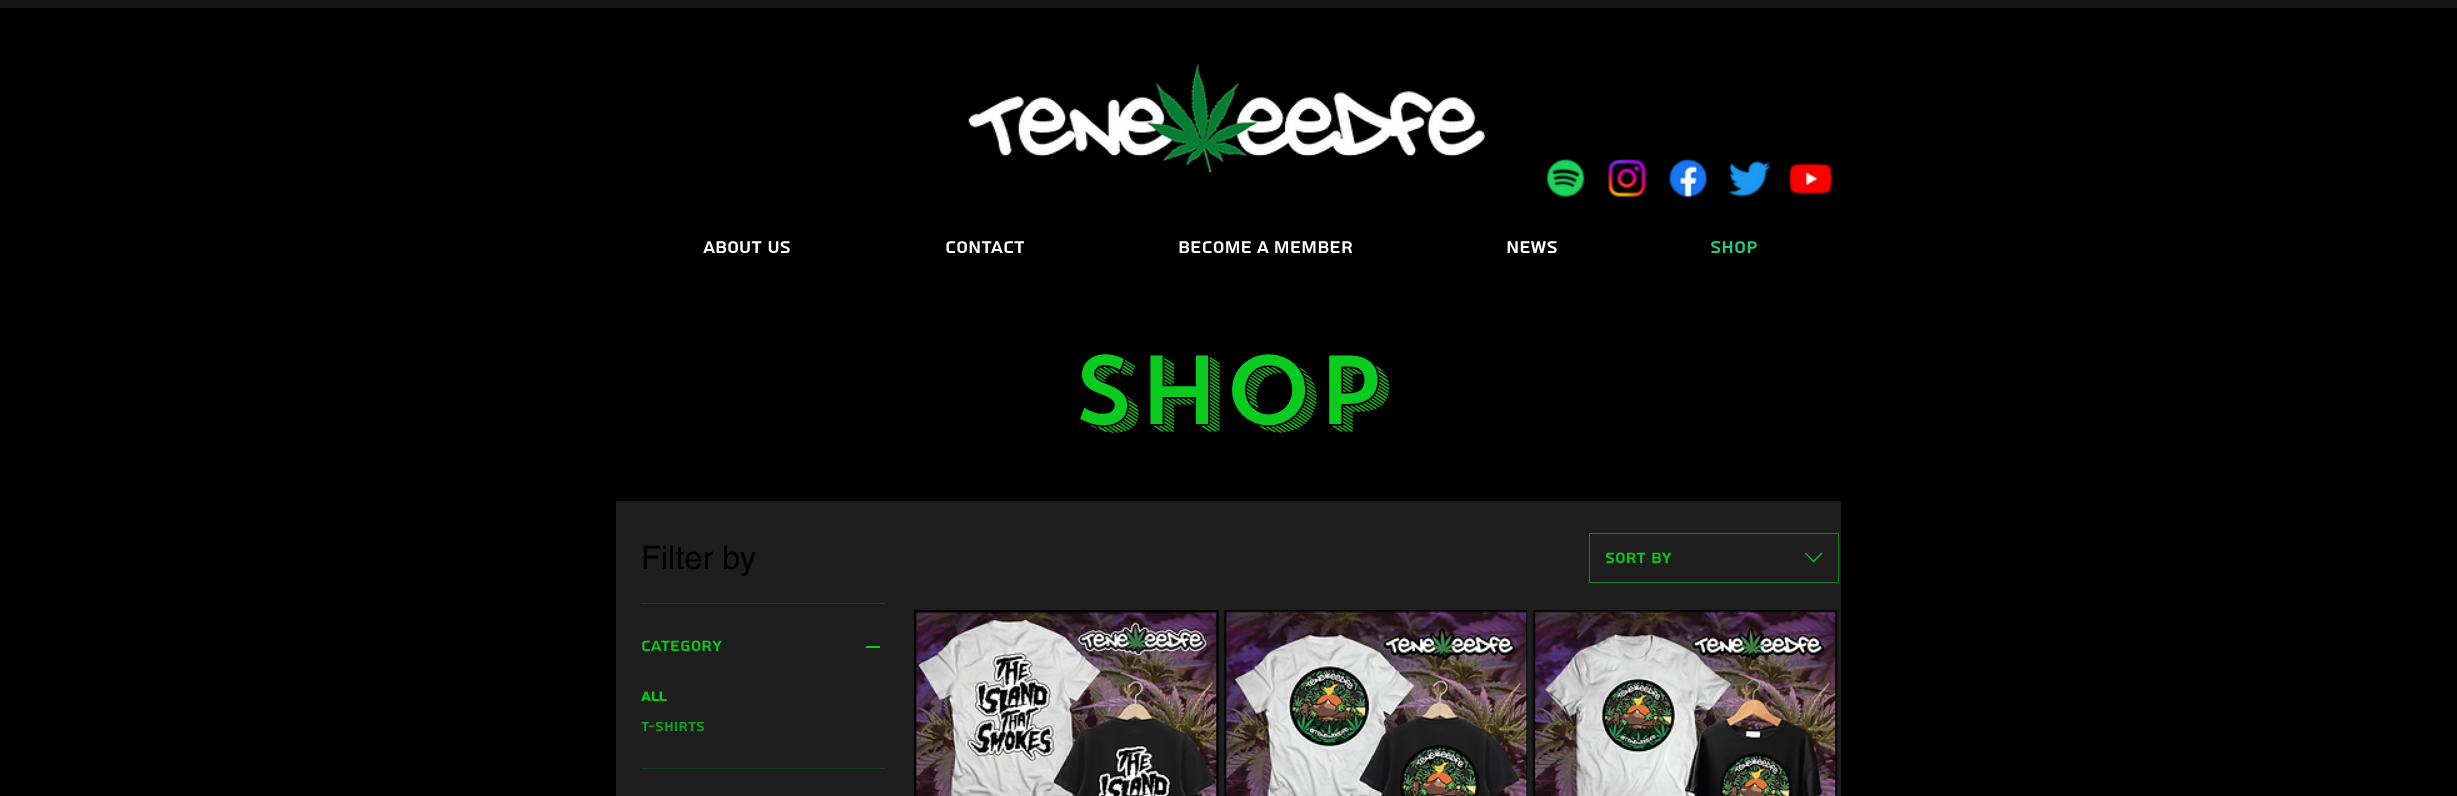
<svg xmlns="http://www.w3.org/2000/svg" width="2457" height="796">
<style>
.a{font:500 22.5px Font;fill:#fffffe}
.b{font:500 22.5px Font;fill:#20ce88}
.c{font:500 97.5px 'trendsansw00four';fill:#0acc1e}
.d{font:32.5px helvetica;fill:#000}
.e{font:500 20px Font;fill:#0acc1e}
.f{font:bold 17.5px Font;fill:#0acc1e}
.g{font:500 17.5px Font;fill:#0ea91e}
</style>
<rect width="100%" height="100%" fill="#000"/>
<path fill="#151515" d="M0 0h2457v8H0z"/>
<image href="1.png" x="968" y="63" width="518" height="110"/>
<image href="2.png" x="1546" y="158" width="39" height="40"/>
<image href="3.png" x="1607" y="158" width="40" height="40"/>
<image href="4.png" x="1668" y="158" width="40" height="40"/>
<image href="5.png" x="1728" y="160" width="43" height="37"/>
<image href="6.png" x="1788" y="163" width="45" height="32"/>
<path fill="#1e1e1e" d="M616 501h1225v295H616z"/>
<path fill="#1a411e" d="M641 603h244v1H641z"/>
<path fill="#1a411e" d="M641 768h244v1H641z"/>
<path fill="#0acc1e" d="M866 646h14v2H866z"/>
<path fill="none" stroke="#12861e" d="M1589.5 533.5h249v49H1589.5z"/>
<path fill="#0acc1e" fill-rule="evenodd" d="M1821.5 552.5l1 1l-9 9l-8.5-9l.5-1l8 8z"/>
<image href="7.png" x="914" y="610" width="305" height="186"/>
<image href="8.png" x="1224" y="610" width="304" height="186"/>
<image href="9.png" x="1532" y="610" width="306" height="186"/>
<text class="a" x="703" y="253">ABOUT US</text>
<text class="a" x="945" y="253">CONTACT</text>
<text class="a" x="1178" y="253">Become A Member</text>
<text class="a" x="1506" y="253">News</text>
<text class="b" x="1710" y="253">Shop</text>
<text class="c" x="1071" y="424">SHOP</text>
<text class="d" x="641" y="569">Filter by</text>
<text class="e" x="641" y="651">Category</text>
<text class="f" x="641" y="701">All</text>
<text class="g" x="641" y="731">T-Shirts</text>
<text class="e" x="1605" y="563">Sort by</text>
</svg>
